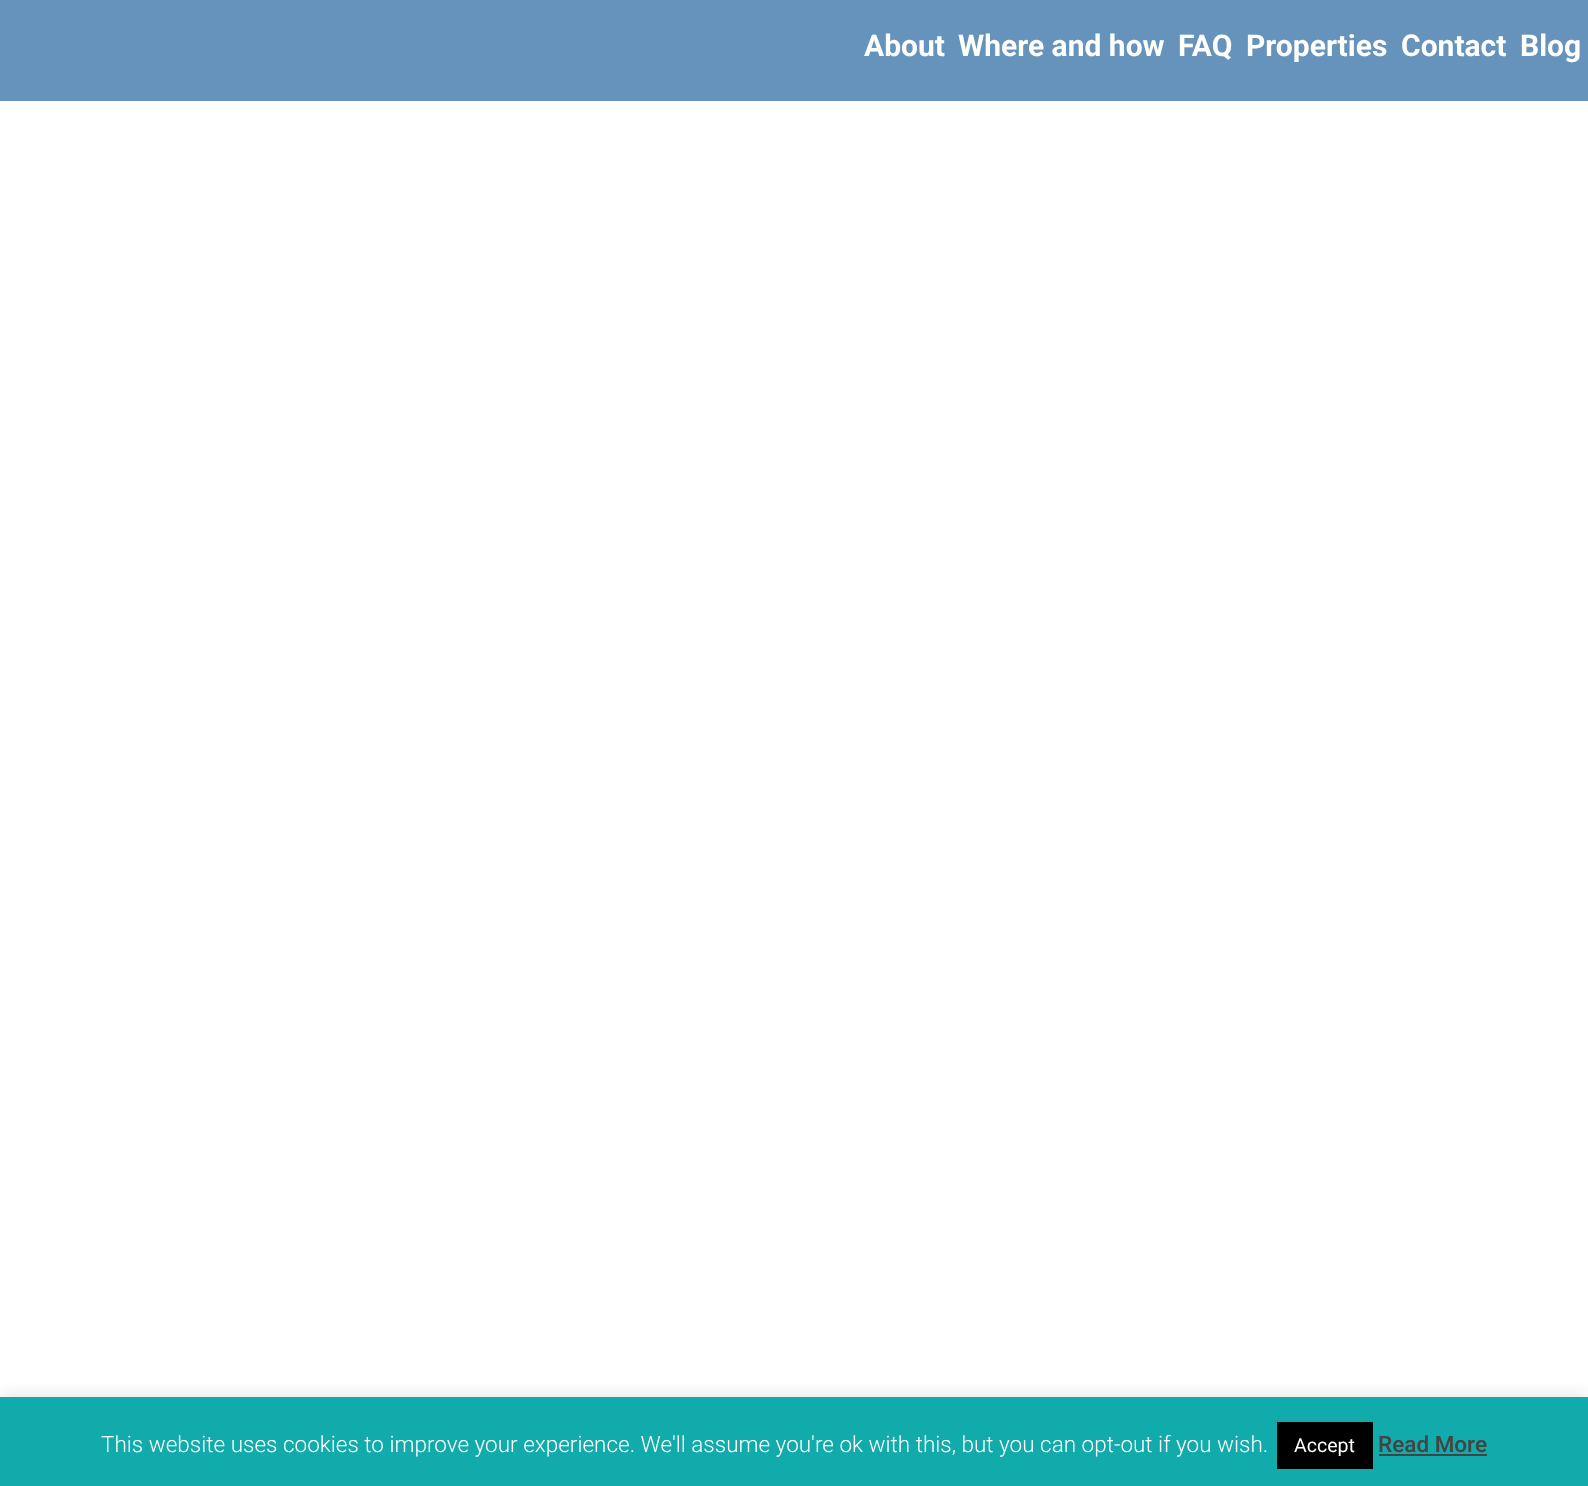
<svg xmlns="http://www.w3.org/2000/svg" width="1588" height="1486">
<style>
.a{font:bold 30px Roboto;fill:#fff}
.b{font:300 22.5px Roboto;fill:#fff}
.c{font:19.5px Roboto;fill:#fff}
.d{font:500 22.5px Roboto;fill:#444}
</style>
<rect width="100%" height="100%" fill="#fff"/>
<path fill="#6593bb" d="M0 0h1588v101H0z"/>
<path fill="#acabab4d" filter="blur(7.5px)" d="M0 1395h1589v90H0z"/>
<path fill="#12abac" d="M0 1397h1588v89H0z"/>
<path fill="#000" d="M1277 1422h96v47H1277z"/>
<path fill="#444" d="M1379 1454h108v2H1379z"/>
<text class="a" x="864" y="56">About</text>
<text class="a" x="958" y="56">Where and how</text>
<text class="a" x="1178" y="56">FAQ</text>
<text class="a" x="1246" y="56">Properties</text>
<text class="a" x="1401" y="56">Contact</text>
<text class="a" x="1520" y="56">Blog</text>
<text class="b" x="101" y="1452">This website uses cookies to improve your experience. We'll assume you're ok with this, but you can opt-out if you wish.</text>
<text class="c" x="1294" y="1452">Accept</text>
<text class="d" x="1378" y="1452">Read More</text>
</svg>
